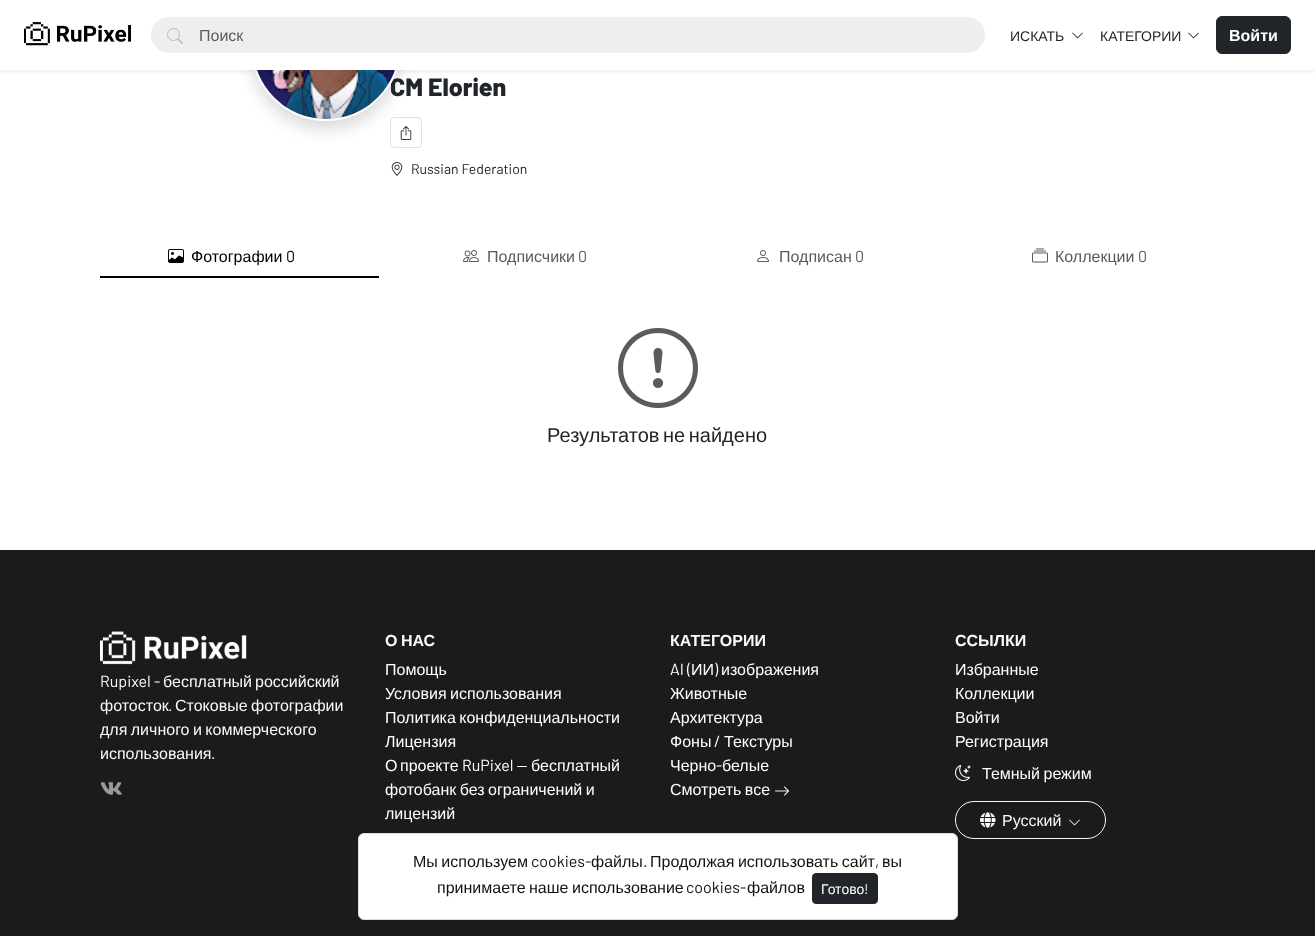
<svg xmlns="http://www.w3.org/2000/svg" width="1315" height="936">
<style>
.a{font:800 25px Barlow;fill:#212529}
.b{font:14px Liberation Sans;fill:#212529}
.c{font:16px Liberation Sans;fill:#595c5f}
.d{font:bold 16px Liberation Sans;fill:#fff}
.e{font:14px Barlow;fill:#212529}
.f{font:16px Liberation Sans;fill:#000}
.g{font:16px Barlow;fill:#000}
.h{font:16px Barlow;fill:#595c5f}
.i{font:20px Liberation Sans;fill:#212529}
.j{font:16px Barlow;fill:#f8f9fa}
.k{font:16px Liberation Sans;fill:#f8f9fa}
.l{font:bold 16px Liberation Sans;fill:#f8f9fa}
.m{font:16px Liberation Sans;fill:#fff}
.n{font:16px Barlow;fill:#fff}
.o{font:16px Liberation Sans;fill:#121212}
.p{font:16px Barlow;fill:#121212}
.q{font:14px Liberation Sans;fill:#fff}
.r{font:14px Barlow;fill:#fff}
</style>
<rect width="100%" height="100%" fill="#fff"/>
<rect fill="none" stroke="#dee2e6" x="390.5" y="117.5" width="31" height="30" rx="3.5"/>
<image href="5.png" x="400" y="126" width="12" height="14"/>
<rect fill="#00000026" filter="blur(8px)" x="251" y="-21" width="150" height="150" rx="75"/>
<image href="6.png" x="391" y="162" width="12" height="14"/>
<path fill="#000" d="M100 276h279v2H100z"/>
<image href="7.png" x="168" y="249" width="16" height="14"/>
<image href="8.png" x="463" y="250" width="16" height="12"/>
<image href="9.png" x="757" y="250" width="12" height="12"/>
<image href="10.png" x="1032" y="248" width="16" height="15"/>
<image href="11.png" x="618" y="328" width="80" height="80"/>
<path fill="#1b1b1b" d="M0 550h1315v386H0z"/>
<image href="12.png" x="100" y="631" width="147" height="34"/>
<image href="13.png" x="100" y="782" width="22" height="13"/>
<image href="14.png" x="775" y="786" width="14" height="10"/>
<image href="15.png" x="955" y="765" width="16" height="16"/>
<rect fill="none" stroke="#f8f9fa" x="955.5" y="801.5" width="150" height="37" rx="18.5"/>
<image href="16.png" x="980" y="812" width="16" height="16"/>
<image href="17.png" x="1069" y="819" width="11" height="7"/>
<rect fill="#fff" stroke="#ddd" x="358.5" y="833.5" width="599" height="86" rx="5.5"/>
<rect fill="#212529" stroke="#212529" x="812.5" y="873.5" width="65" height="30" rx="3.5"/>
<text class="a" x="390" y="96">CM Elorien</text>
<circle fill="none" stroke="#fff" stroke-width="2" cx="326" cy="46" r="74"/>
<image href="4.png" x="257" y="70" width="138" height="49"/>
<path fill="#00000012" filter="blur(2px)" d="M0 2h1315v70H0z"/>
<path fill="#fff" d="M0 0h1315v70H0z"/>
<image href="3.png" x="1188" y="32" width="11" height="7"/>
<text class="b" x="1100" y="41">КАТЕГОРИИ</text>
<image href="3.png" x="1072" y="32" width="11" height="7"/>
<text class="b" x="1010" y="41">ИСКАТЬ</text>
<rect fill="#eee" x="151" y="17" width="834" height="36" rx="18"/>
<image href="2.png" x="167" y="28" width="16" height="16"/>
<text class="c" x="199" y="41">Поиск</text>
<rect fill="#212529" stroke="#212529" x="1216.5" y="16.5" width="74" height="37" rx="5.5"/>
<text class="d" x="1229" y="41">Войти</text>
<image href="1.png" x="24" y="22" width="107" height="24"/>
<text class="e" x="411" y="174">Russian Federation</text>
<text class="f" x="191" y="262">Фотографии</text>
<text class="g" x="286" y="262">0</text>
<text class="c" x="487" y="262">Подписчики</text>
<text class="h" x="578" y="262">0</text>
<text class="c" x="779" y="262">Подписан</text>
<text class="h" x="855" y="262">0</text>
<text class="c" x="1055" y="262">Коллекции</text>
<text class="h" x="1138" y="262">0</text>
<text class="i" x="547" y="442" word-spacing="-2">Результатов не найдено</text>
<text class="j" x="100" y="687">Rupixel -</text>
<text class="k" x="163" y="687">бесплатный</text>
<text class="k" x="255" y="687">российский</text>
<text class="k" x="100" y="711">фотосток</text>
<text class="j" x="168" y="711">.</text>
<text class="k" x="175" y="711" word-spacing="-1">Стоковые фотографии</text>
<text class="k" x="100" y="735" word-spacing="-1">для личного и коммерческого</text>
<text class="k" x="100" y="759">использования</text>
<text class="j" x="211" y="759">.</text>
<text class="l" x="385" y="646" word-spacing="-1">О НАС</text>
<text class="m" x="385" y="675">Помощь</text>
<text class="m" x="385" y="699" word-spacing="-1">Условия использования</text>
<text class="m" x="385" y="723" word-spacing="-1">Политика конфиденциальности</text>
<text class="m" x="385" y="747">Лицензия</text>
<text class="m" x="385" y="771">О</text>
<text class="m" x="400" y="771">проекте</text>
<text class="n" x="462" y="771">RuPixel —</text>
<text class="m" x="531" y="771">бесплатный</text>
<text class="m" x="385" y="795" word-spacing="-1">фотобанк без ограничений и</text>
<text class="m" x="385" y="819">лицензий</text>
<text class="l" x="670" y="646">КАТЕГОРИИ</text>
<text class="n" x="670" y="675">AI (</text>
<text class="m" x="691" y="675">ИИ</text>
<text class="n" x="714" y="675">)</text>
<text class="m" x="721" y="675">изображения</text>
<text class="m" x="670" y="699">Животные</text>
<text class="m" x="670" y="723">Архитектура</text>
<text class="m" x="670" y="747">Фоны</text>
<text class="n" x="714" y="747">/</text>
<text class="m" x="724" y="747">Текстуры</text>
<text class="m" x="670" y="771">Черно</text>
<text class="n" x="716" y="771">-</text>
<text class="m" x="722" y="771">белые</text>
<text class="m" x="670" y="795" word-spacing="-1">Смотреть все</text>
<text class="l" x="955" y="646">ССЫЛКИ</text>
<text class="m" x="955" y="675">Избранные</text>
<text class="m" x="955" y="699">Коллекции</text>
<text class="m" x="955" y="723">Войти</text>
<text class="m" x="955" y="747">Регистрация</text>
<text class="m" x="982" y="779" word-spacing="-1">Темный режим</text>
<text class="k" x="1002" y="826">Русский</text>
<text class="o" x="413" y="867" word-spacing="-1">Мы используем</text>
<text class="p" x="531" y="867">cookies-</text>
<text class="o" x="591" y="867">файлы</text>
<text class="p" x="643" y="867">.</text>
<text class="o" x="650" y="867" word-spacing="-1">Продолжая использовать сайт</text>
<text class="p" x="875" y="867">,</text>
<text class="o" x="882" y="867">вы</text>
<text class="o" x="437" y="893" word-spacing="-1">принимаете наше использование</text>
<text class="p" x="686" y="893">cookies-</text>
<text class="o" x="747" y="893">файлов</text>
<text class="q" x="821" y="894">Готово</text>
<text class="r" x="864" y="894">!</text>
</svg>
